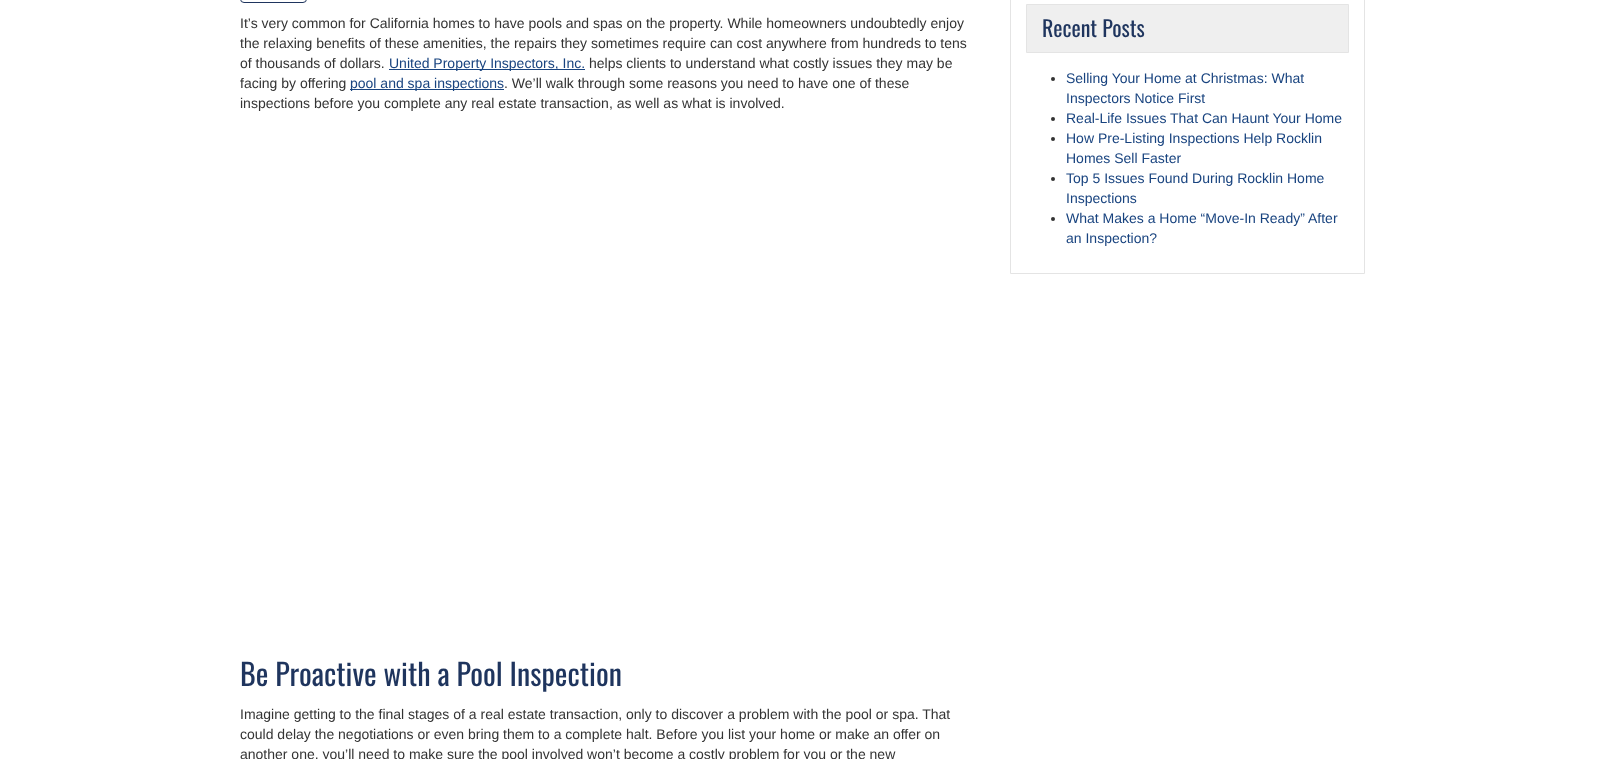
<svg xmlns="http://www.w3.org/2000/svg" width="1605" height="759">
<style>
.a{font:14px Liberation Sans;fill:#333}
.b{font:14px Liberation Sans;fill:#18437f}
.c{font:30px Oswald;fill:#1f355e}
.d{font:22px Oswald;fill:#1f355e}
</style>
<rect width="100%" height="100%" fill="#fff"/>
<rect fill="none" stroke="#1f355e" x="240.5" y="-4.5" width="66" height="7" rx="3.5"/>
<path fill="#18437f" d="M389 69h196v1H389z"/>
<path fill="#18437f" d="M350 89h154v1H350z"/>
<path fill="none" stroke="#e4e4e4" d="M1010.5 -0.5h354v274H1010.5z"/>
<path fill="#efefef" stroke="#e4e4e4" d="M1026.5 4.5h322v48H1026.5z"/>
<circle fill="#333" cx="1053" cy="79" r="2"/>
<circle fill="#333" cx="1053" cy="119" r="2"/>
<circle fill="#333" cx="1053" cy="139" r="2"/>
<circle fill="#333" cx="1053" cy="179" r="2"/>
<circle fill="#333" cx="1053" cy="219" r="2"/>
<text class="a" x="240" y="28">It’s very common for California homes to have pools and spas on the property. While homeowners undoubtedly enjoy</text>
<text class="a" x="240" y="48">the relaxing benefits of these amenities, the repairs they sometimes require can cost anywhere from hundreds to tens</text>
<text class="a" x="240" y="68">of thousands of dollars.</text>
<text class="b" x="389" y="68">United Property Inspectors, Inc.</text>
<text class="a" x="589" y="68">helps clients to understand what costly issues they may be</text>
<text class="a" x="240" y="88">facing by offering</text>
<text class="b" x="350" y="88">pool and spa inspections</text>
<text class="a" x="504" y="88">. We’ll walk through some reasons you need to have one of these</text>
<text class="a" x="240" y="108">inspections before you complete any real estate transaction, as well as what is involved.</text>
<text class="c" x="240" y="686">Be Proactive with a Pool Inspection</text>
<text class="a" x="240" y="719">Imagine getting to the final stages of a real estate transaction, only to discover a problem with the pool or spa. That</text>
<text class="a" x="240" y="739">could delay the negotiations or even bring them to a complete halt. Before you list your home or make an offer on</text>
<text class="a" x="240" y="759">another one, you’ll need to make sure the pool involved won’t become a costly problem for you or the new</text>
<text class="d" x="1042" y="37">Recent Posts</text>
<text class="b" x="1066" y="83">Selling Your Home at Christmas: What</text>
<text class="b" x="1066" y="103">Inspectors Notice First</text>
<text class="b" x="1066" y="123">Real-Life Issues That Can Haunt Your Home</text>
<text class="b" x="1066" y="143">How Pre-Listing Inspections Help Rocklin</text>
<text class="b" x="1066" y="163">Homes Sell Faster</text>
<text class="b" x="1066" y="183">Top 5 Issues Found During Rocklin Home</text>
<text class="b" x="1066" y="203">Inspections</text>
<text class="b" x="1066" y="223">What Makes a Home “Move-In Ready” After</text>
<text class="b" x="1066" y="243">an Inspection?</text>
</svg>
